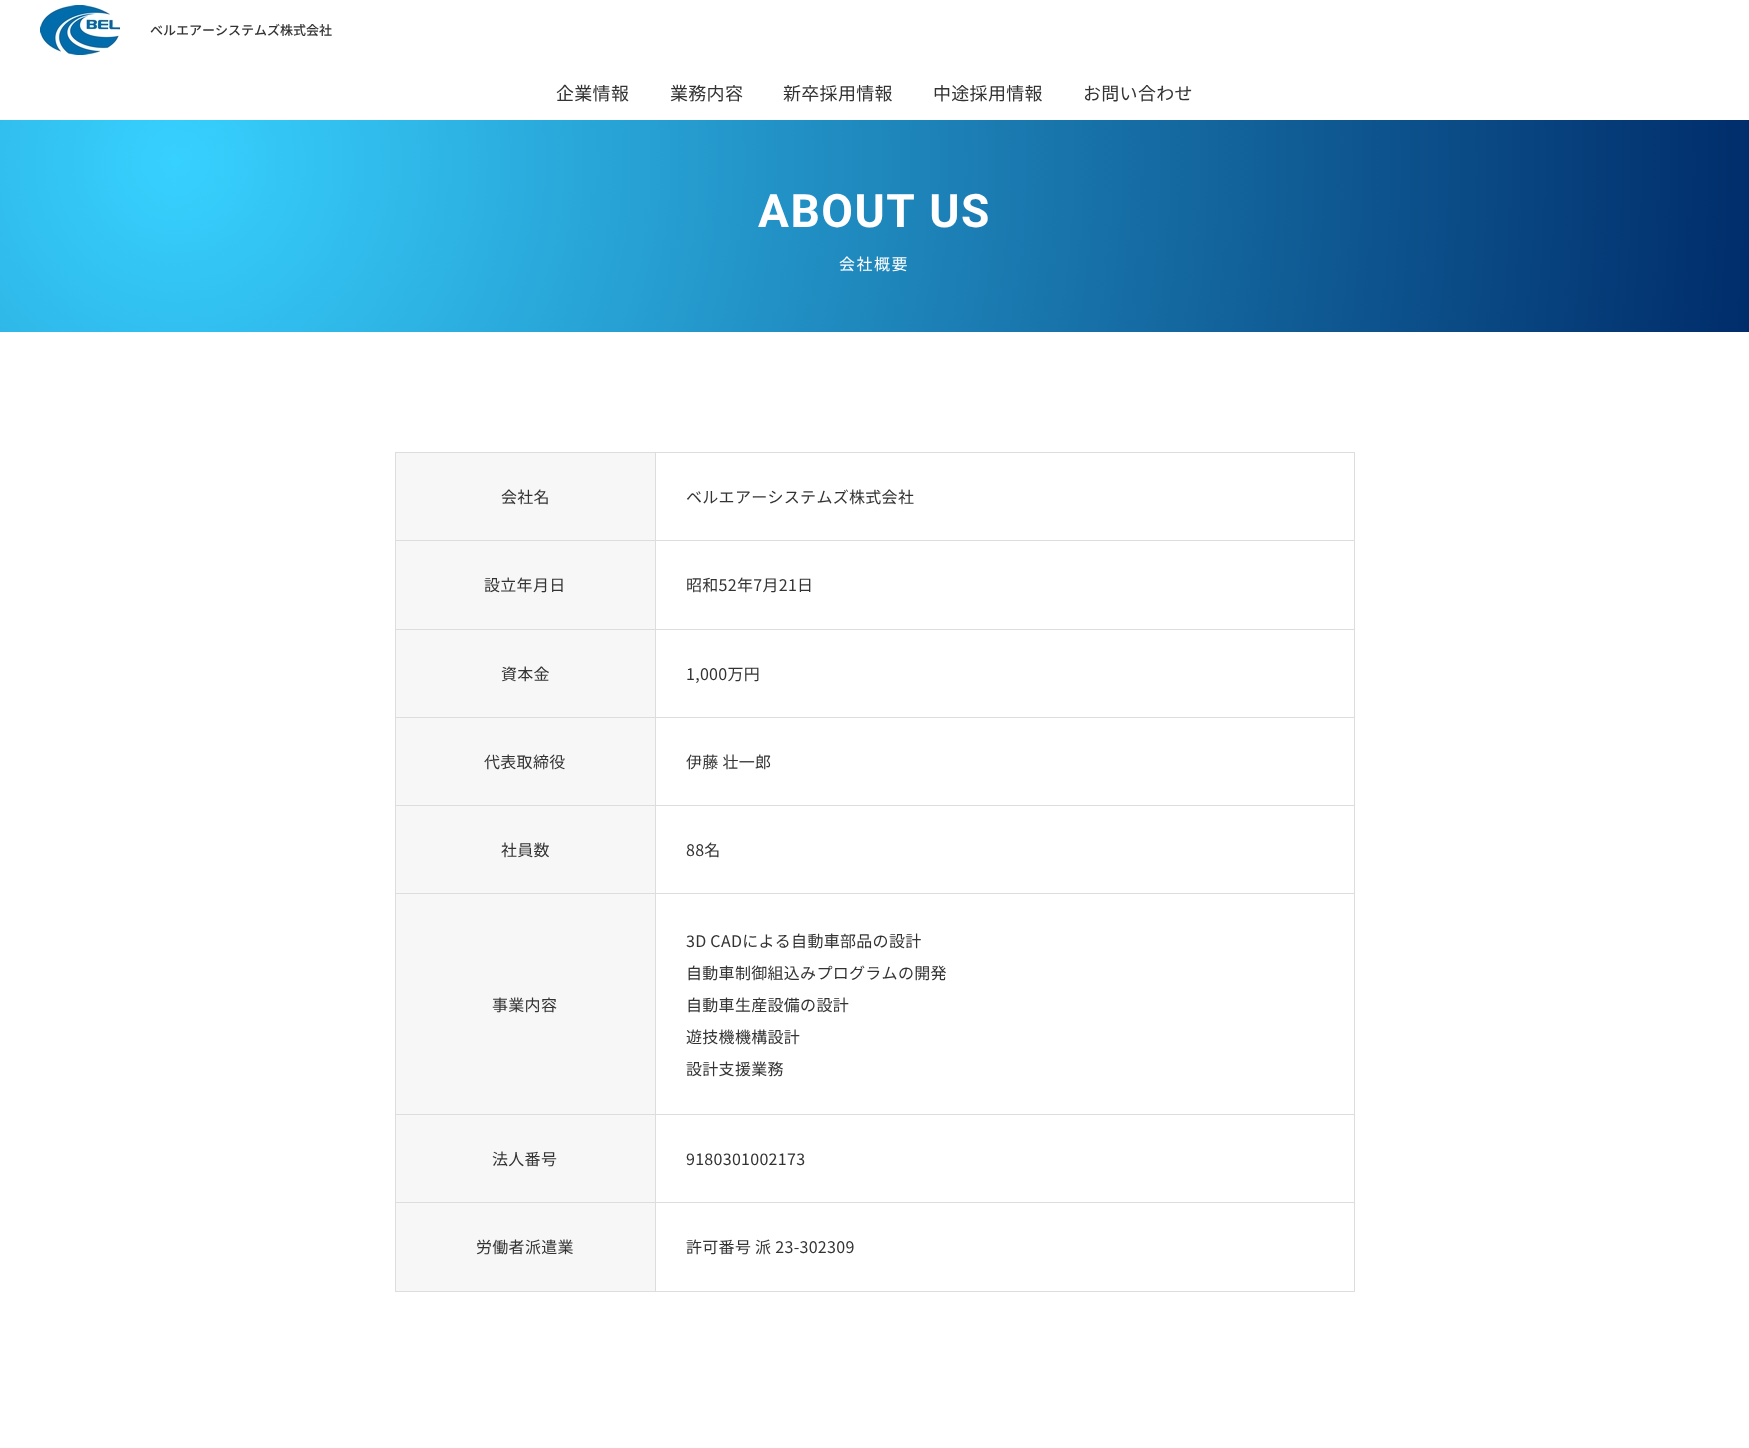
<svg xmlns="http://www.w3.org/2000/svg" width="1749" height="1448">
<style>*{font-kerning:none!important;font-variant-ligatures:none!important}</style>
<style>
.a{font:500 13px Noto Sans JP;fill:#333}
.b{font:18px Noto Sans JP;letter-spacing:0.3px;fill:#333}
.c{font:bold 46px Roboto;letter-spacing:1.5px;fill:#fff}
.d{font:16px Noto Sans JP;letter-spacing:1.5px;fill:#fff}
.e{font:16px Noto Sans JP;letter-spacing:0.3px;fill:#333}
</style>
<defs>
<radialGradient id="g1" gradientUnits="userSpaceOnUse" cx="175" cy="162" r="1586"><stop offset="0" stop-color="#37d1ff"/><stop offset="1" stop-color="#002c6a"/></radialGradient>
</defs>
<rect width="100%" height="100%" fill="#fff"/>
<image href="1.png" x="40" y="5" width="80" height="50"/>
<path fill="url(#g1)" d="M0 120h1749v212H0z"/>
<path fill="#ddd" d="M395 452h960v1H395z"/>
<path fill="#ddd" d="M1354 452h1v840H1354z"/>
<path fill="#ddd" d="M395 1291h960v1H395z"/>
<path fill="#ddd" d="M395 452h1v840H395z"/>
<path fill="#f7f7f7" d="M396 453h259v87H396z"/>
<path fill="#ddd" d="M655 540h700v1H655z"/>
<path fill="#ddd" d="M655 629h700v1H655z"/>
<path fill="#ddd" d="M655 717h700v1H655z"/>
<path fill="#ddd" d="M655 805h700v1H655z"/>
<path fill="#ddd" d="M655 893h700v1H655z"/>
<path fill="#ddd" d="M655 1114h700v1H655z"/>
<path fill="#ddd" d="M655 1202h700v1H655z"/>
<path fill="#ddd" d="M655 1202h1v90H655z"/>
<path fill="#ddd" d="M395 1202h261v1H395z"/>
<path fill="#ddd" d="M655 1114h1v89H655z"/>
<path fill="#ddd" d="M395 1114h261v1H395z"/>
<path fill="#ddd" d="M655 893h1v222H655z"/>
<path fill="#ddd" d="M395 893h261v1H395z"/>
<path fill="#ddd" d="M655 805h1v89H655z"/>
<path fill="#ddd" d="M395 805h261v1H395z"/>
<path fill="#ddd" d="M655 717h1v89H655z"/>
<path fill="#ddd" d="M395 717h261v1H395z"/>
<path fill="#ddd" d="M655 629h1v89H655z"/>
<path fill="#ddd" d="M395 629h261v1H395z"/>
<path fill="#ddd" d="M655 540h1v90H655z"/>
<path fill="#ddd" d="M395 540h261v1H395z"/>
<path fill="#ddd" d="M655 452h1v89H655z"/>
<path fill="#f7f7f7" d="M396 541h259v88H396z"/>
<path fill="#f7f7f7" d="M396 630h259v87H396z"/>
<path fill="#f7f7f7" d="M396 718h259v87H396z"/>
<path fill="#f7f7f7" d="M396 806h259v87H396z"/>
<path fill="#f7f7f7" d="M396 894h259v220H396z"/>
<path fill="#f7f7f7" d="M396 1115h259v87H396z"/>
<path fill="#f7f7f7" d="M396 1203h259v88H396z"/>
<text class="a" x="150" y="35">ベルエアーシステムズ株式会社</text>
<text class="b" x="556" y="100">企業情報</text>
<text class="b" x="670" y="100">業務内容</text>
<text class="b" x="783" y="100">新卒採用情報</text>
<text class="b" x="933" y="100">中途採用情報</text>
<text class="b" x="1083" y="100">お問い合わせ</text>
<text class="c" x="758" y="227">ABOUT US</text>
<text class="d" x="839" y="270">会社概要</text>
<text class="e" x="501" y="503">会社名</text>
<text class="e" x="686" y="503">ベルエアーシステムズ株式会社</text>
<text class="e" x="484" y="591">設立年月日</text>
<text class="e" x="686" y="591">昭和52年7月21日</text>
<text class="e" x="501" y="680">資本金</text>
<text class="e" x="686" y="680">1,000万円</text>
<text class="e" x="484" y="768">代表取締役</text>
<text class="e" x="686" y="768">伊藤 壮一郎</text>
<text class="e" x="501" y="856">社員数</text>
<text class="e" x="686" y="856">88名</text>
<text class="e" x="492" y="1011">事業内容</text>
<text class="e" x="686" y="947">3D CADによる自動車部品の設計</text>
<text class="e" x="686" y="979">自動車制御組込みプログラムの開発</text>
<text class="e" x="686" y="1011">自動車生産設備の設計</text>
<text class="e" x="686" y="1043">遊技機機構設計</text>
<text class="e" x="686" y="1075">設計支援業務</text>
<text class="e" x="492" y="1165">法人番号</text>
<text class="e" x="686" y="1165">9180301002173</text>
<text class="e" x="476" y="1253">労働者派遣業</text>
<text class="e" x="686" y="1253">許可番号 派 23-302309</text>
</svg>
